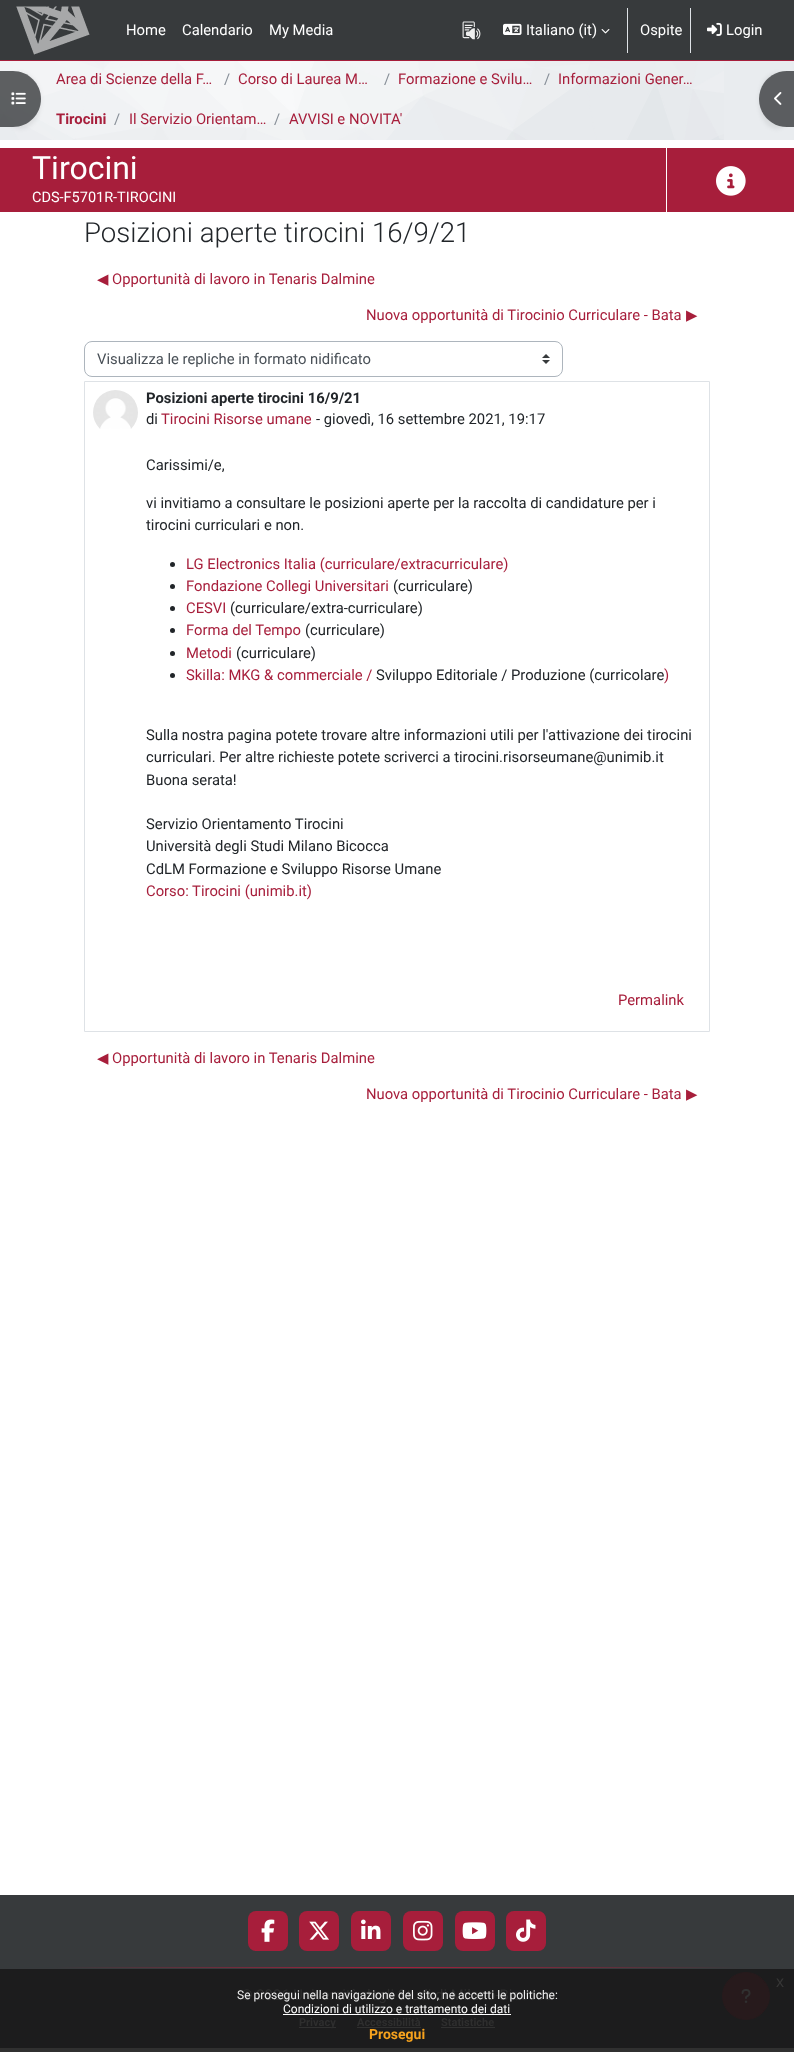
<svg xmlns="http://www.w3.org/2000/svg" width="794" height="2052">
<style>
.a{font:14.8px Roboto;fill:#fff}
.b{font:14.8px Roboto;fill:#a71e3b}
.c{font:14.8px Roboto;fill:#868e96}
.d{font:bold 14.8px Roboto;fill:#a71e3b}
.e{font:32px Roboto;fill:#fff}
.f{font:14.5px Roboto;fill:#fff}
.g{font:300 27.6px Roboto;fill:#212529}
.h{font:14.8px DejaVu Sans;fill:#a71e3b}
.i{font:14.8px Roboto;fill:#495057}
.j{font:bold 14.8px Roboto;fill:#212529}
.k{font:14.8px Roboto;fill:#212529}
.l{font:14.8px Roboto;fill:#2e2e2e}
.m{font:bold 11px Roboto;fill:#2e2e2e}
.n{font:16px Liberation Sans;fill:#373737}
.o{font:12px Roboto;fill:#efefef}
.p{font:12px Roboto;fill:#fff}
.q{font:bold 14px Roboto;fill:#f6a21d}
</style>
<defs>
<clipPath id="clip1"><path d="M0 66h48v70h-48zm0 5h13c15.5 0 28 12.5 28 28c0 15.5-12.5 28-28 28h-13z" clip-rule="evenodd"/></clipPath>
<clipPath id="clip2"><path d="M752 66h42v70h-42zm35 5h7v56h-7c-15.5 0-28-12.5-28-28c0-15.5 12.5-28 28-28z" clip-rule="evenodd"/></clipPath>
<linearGradient id="g1" gradientUnits="userSpaceOnUse" x1="53" y1="1968" x2="741" y2="1968"><stop offset="0" stop-color="#373a3c"/><stop offset="0.5" stop-color="#a71e3b"/><stop offset="1" stop-color="#373a3c"/></linearGradient>
</defs>
<rect width="100%" height="100%" fill="#fff"/>
<path fill="#303030" d="M0 2048h794v4H0z"/>
<path fill="#373a3c" d="M0 0h794v60H0z"/>
<path fill="#a71e3b" d="M0 60h794v1H0z"/>
<image href="1.png" x="16" y="6" width="74" height="49"/>
<image href="2.png" x="462" y="21" width="19" height="19"/>
<image href="3.png" x="503" y="23" width="19" height="12"/>
<image href="4.png" x="601" y="29" width="9" height="5"/>
<path fill="#dee2e6" d="M627 8h1v45H627z"/>
<path fill="#dee2e6" d="M690 8h1v45H690z"/>
<image href="5.png" x="707" y="22" width="15" height="14"/>
<image href="8.png" x="0" y="61" width="724" height="79"/>
<g clip-path="url(#clip1)">
<rect fill="#00000012" filter="blur(2px)" y="73" width="41" height="56" rx="28"/>
</g>
<path fill="#373a3ccc" d="M0 71h13c15.5 0 28 12.5 28 28c0 15.5-12.5 28-28 28h-13z"/>
<image href="6.png" x="11" y="92" width="15" height="13"/>
<path fill="#e9ecef" d="M724 61h70v79H724z"/>
<g clip-path="url(#clip2)">
<rect fill="#00000012" filter="blur(2px)" x="759" y="73" width="35" height="56" rx="28"/>
</g>
<path fill="#373a3ccc" d="M787 71h7v56h-7c-15.5 0-28-12.5-28-28c0-15.5 12.5-28 28-28z"/>
<image href="7.png" x="774" y="92" width="8" height="13"/>
<path fill="#a71e3b" d="M0 148h794v64H0z"/>
<path fill="#fff" d="M666 148h1v64H666z"/>
<image href="9.png" x="716" y="166" width="30" height="30"/>
<image href="10.png" x="542" y="354" width="8" height="10"/>
<rect fill="none" stroke="#adb5bd" x="84.5" y="341.5" width="478" height="35" rx="7.5"/>
<path fill="none" stroke="#dee2e6" d="M84.5 381.5h625v650H84.5z"/>
<image href="11.png" x="93" y="390" width="45" height="39"/>
<circle fill="#212529" cx="172.5" cy="564.5" r="2.5"/>
<circle fill="#212529" cx="172.5" cy="586.5" r="2.5"/>
<circle fill="#212529" cx="172.5" cy="608.5" r="2.5"/>
<circle fill="#212529" cx="172.5" cy="630.5" r="2.5"/>
<circle fill="#212529" cx="172.5" cy="653.5" r="2.5"/>
<circle fill="#212529" cx="172.5" cy="675.5" r="2.5"/>
<path fill="#373a3c" d="M0 1895h794v74H0z"/>
<path fill="#1c1c1d" d="M0 1969h794v79H0z"/>
<rect fill="#a71e3b" x="248" y="1911" width="40" height="40" rx="8"/>
<image href="12.png" x="261" y="1919" width="14" height="23"/>
<rect fill="#a71e3b" x="299" y="1911" width="40" height="40" rx="8"/>
<image href="13.png" x="309" y="1921" width="20" height="19"/>
<rect fill="#a71e3b" x="351" y="1911" width="40" height="40" rx="8"/>
<image href="14.png" x="361" y="1919" width="20" height="20"/>
<rect fill="#a71e3b" x="403" y="1911" width="40" height="40" rx="8"/>
<image href="15.png" x="413" y="1920" width="20" height="21"/>
<rect fill="#a71e3b" x="455" y="1911" width="40" height="40" rx="8"/>
<image href="16.png" x="462" y="1922" width="25" height="17"/>
<rect fill="#a71e3b" x="506" y="1911" width="40" height="40" rx="8"/>
<image href="17.png" x="516" y="1919" width="20" height="23"/>
<path fill="url(#g1)" d="M53 1967h688v1H53z"/>
<path fill="#303030" d="M299 2027h37v1H299z"/>
<path fill="#303030" d="M357 2027h64v1H357z"/>
<path fill="#303030" d="M441 2027h54v1H441z"/>
<circle fill="#271a1c" stroke="#271a1c" cx="746" cy="1996" r="23.5"/>
<image href="18.png" x="741" y="1989" width="10" height="14"/>
<path fill="#fff" d="M283 2014h228v1H283z"/>
<text class="a" x="126" y="35">Home</text>
<text class="a" x="182" y="35">Calendario</text>
<text class="a" x="269" y="35">My Media</text>
<text class="a" x="526" y="35">Italiano (it)</text>
<text class="a" x="640" y="35">Ospite</text>
<text class="a" x="726" y="35">Login</text>
<text class="b" x="56" y="84">Area di Scienze della F…</text>
<text class="c" x="224" y="84">/</text>
<text class="b" x="238" y="84">Corso di Laurea M…</text>
<text class="c" x="384" y="84">/</text>
<text class="b" x="398" y="84">Formazione e Svilu…</text>
<text class="c" x="544" y="84">/</text>
<text class="b" x="558" y="84">Informazioni Gener…</text>
<text class="d" x="56" y="124">Tirocini</text>
<text class="c" x="114" y="124">/</text>
<text class="b" x="129" y="124">Il Servizio Orientam…</text>
<text class="c" x="274" y="124">/</text>
<text class="b" x="289" y="124">AVVISI e NOVITA'</text>
<text class="e" x="32" y="179">Tirocini</text>
<text class="f" x="32" y="202">CDS-F5701R-TIROCINI</text>
<text class="g" x="84" y="242">Posizioni aperte tirocini 16/9/21</text>
<text class="h" x="97" y="284">◀︎</text>
<text class="b" x="112" y="284">Opportunità di lavoro in Tenaris Dalmine</text>
<text class="b" x="366" y="320">Nuova opportunità di Tirocinio Curriculare - Bata</text>
<text class="h" x="686" y="320">▶︎</text>
<text class="i" x="97" y="364">Visualizza le repliche in formato nidificato</text>
<text class="j" x="146" y="403">Posizioni aperte tirocini 16/9/21</text>
<text class="k" x="146" y="424">di</text>
<text class="b" x="161" y="424">Tirocini Risorse umane</text>
<text class="k" x="316" y="424">- giovedì, 16 settembre 2021, 19:17</text>
<text class="k" x="146" y="470">Carissimi/e,</text>
<text class="k" x="146" y="508">vi invitiamo a consultare le posizioni aperte per la raccolta di candidature per i</text>
<text class="k" x="146" y="530">tirocini curriculari e non.</text>
<text class="b" x="186" y="569">LG Electronics Italia (curriculare/extracurriculare)</text>
<text class="b" x="186" y="591">Fondazione Collegi Universitari</text>
<text class="k" x="393" y="591">(curriculare)</text>
<text class="b" x="186" y="613">CESVI</text>
<text class="k" x="230" y="613">(curriculare/extra-curriculare)</text>
<text class="b" x="186" y="635">Forma del Tempo</text>
<text class="k" x="305" y="635">(curriculare)</text>
<text class="b" x="186" y="658">Metodi</text>
<text class="k" x="236" y="658">(curriculare)</text>
<text class="b" x="186" y="680">Skilla: MKG &amp; commerciale /</text>
<text class="k" x="376" y="680">Sviluppo Editoriale / Produzione (curricolare</text>
<text class="b" x="664" y="680">)</text>
<text class="k" x="146" y="740">Sulla nostra pagina potete trovare altre informazioni utili per l'attivazione dei tirocini</text>
<text class="k" x="146" y="762">curriculari. Per altre richieste potete scriverci a tirocini.risorseumane@unimib.it</text>
<text class="k" x="146" y="785">Buona serata!</text>
<text class="k" x="146" y="829">Servizio Orientamento Tirocini</text>
<text class="k" x="146" y="851">Università degli Studi Milano Bicocca</text>
<text class="k" x="146" y="874">CdLM Formazione e Sviluppo Risorse Umane</text>
<text class="b" x="146" y="896">Corso: Tirocini (unimib.it)</text>
<text class="b" x="618" y="1005">Permalink</text>
<text class="h" x="97" y="1063">◀︎</text>
<text class="b" x="112" y="1063">Opportunità di lavoro in Tenaris Dalmine</text>
<text class="b" x="366" y="1099">Nuova opportunità di Tirocinio Curriculare - Bata</text>
<text class="h" x="686" y="1099">▶︎</text>
<text class="l" x="241" y="2000">© 2026 Università degli Studi di Milano-Bicocca</text>
<text class="m" x="299" y="2026">Privacy</text>
<text class="m" x="357" y="2026">Accessibilità</text>
<text class="m" x="441" y="2026">Statistiche</text>
<text class="n" x="776" y="1987">x</text>
<text class="o" x="237" y="1999">Se prosegui nella navigazione del sito, ne accetti le politiche:</text>
<text class="p" x="283" y="2013">Condizioni di utilizzo e trattamento dei dati</text>
<text class="q" x="369" y="2039">Prosegui</text>
</svg>
